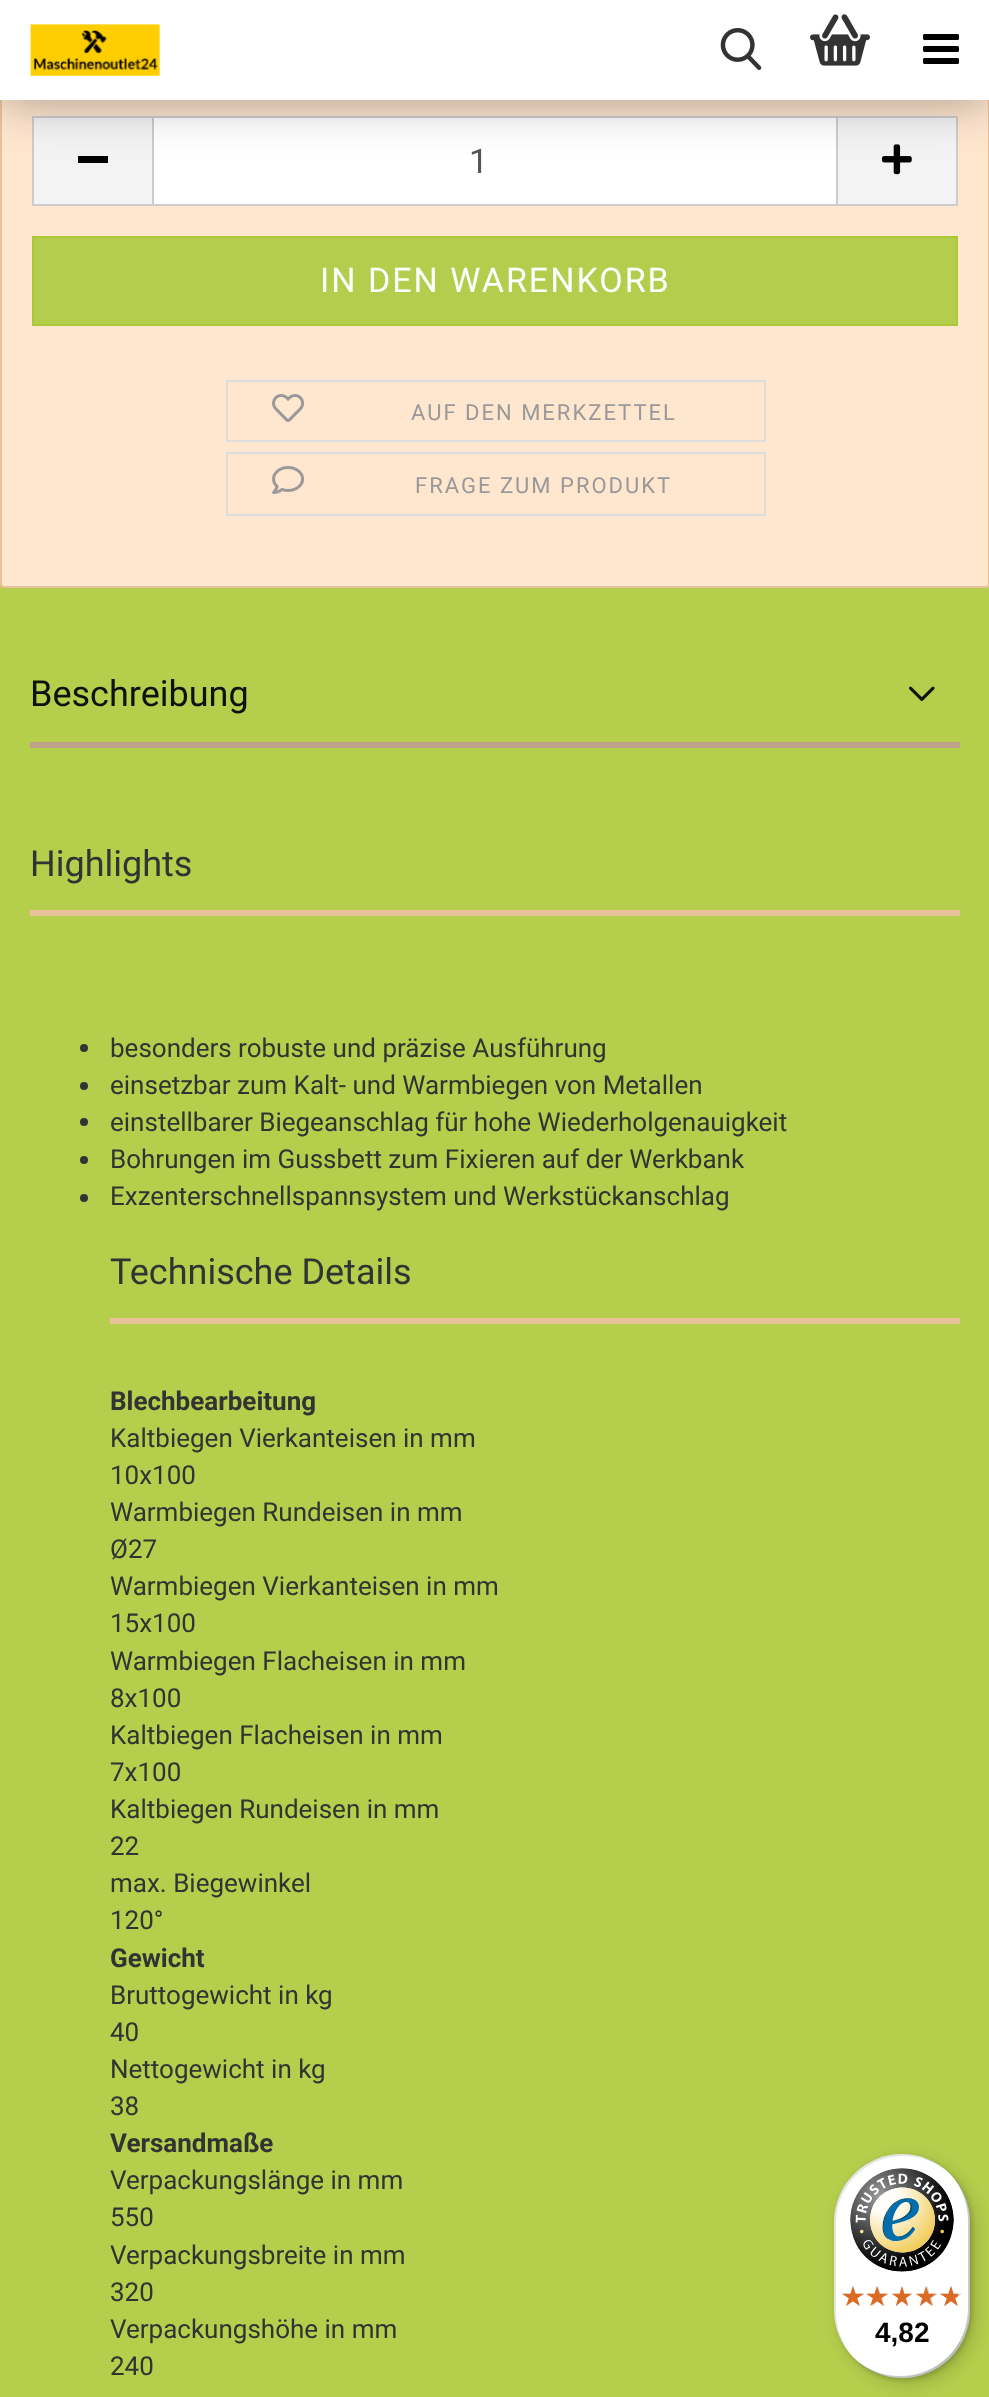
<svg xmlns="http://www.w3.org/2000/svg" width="989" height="2397">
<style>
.a{font:34px Roboto;fill:#555}
.b{font:34px Roboto;letter-spacing:2px;fill:#fff}
.c{font:22px Roboto;letter-spacing:2px;fill:#999}
.d{font:36px Roboto;fill:#111}
.e{font:36px Roboto;fill:#333}
.f{font:26px Roboto;fill:#333}
.g{font:bold 26px Roboto;fill:#333}
.h{font:bold 28px Liberation Sans;fill:#000}
</style>
<rect width="100%" height="100%" fill="#b5ce4c"/>
<rect fill="#ffe6cf" stroke="#e9c299" stroke-width="2" x="1" y="-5" width="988" height="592" rx="3"/>
<path fill="#f3f3f3" d="M34 118h118v86H34z"/>
<path fill="#ccc" d="M32 116h120v2H32z"/>
<path fill="#ccc" d="M32 204h120v2H32z"/>
<path fill="#ccc" d="M32 116h2v90H32z"/>
<path fill="#000" d="M78 156h30v7H78z"/>
<path fill="#fff" stroke="#ccc" stroke-width="2" d="M153 117h684v88H153z"/>
<path fill="#f3f3f3" d="M838 118h118v86H838z"/>
<path fill="#ccc" d="M838 116h120v2H838z"/>
<path fill="#ccc" d="M956 116h2v90H956z"/>
<image href="5.png" x="882" y="144" width="30" height="31"/>
<path fill="#00000059" filter="blur(25px)" d="M0 0h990v100H0z"/>
<path fill="#fff" d="M0 0h989v100H0z"/>
<image href="1.png" x="30" y="24" width="130" height="52"/>
<image href="2.png" x="720" y="28" width="42" height="42"/>
<image href="3.png" x="810" y="14" width="60" height="52"/>
<image href="4.png" x="923" y="34" width="36" height="30"/>
<path fill="#ccc" d="M838 204h120v2H838z"/>
<path fill="#b5cd4c" stroke="#adc738" stroke-width="2" d="M33 237h924v88H33z"/>
<path fill="none" stroke="#ddd" stroke-width="2" d="M227 381h538v60H227z"/>
<image href="6.png" x="272" y="394" width="33" height="28"/>
<path fill="none" stroke="#ddd" stroke-width="2" d="M227 453h538v62H227z"/>
<image href="7.png" x="272" y="466" width="32" height="28"/>
<path fill="#bea28a" d="M30 742h930v6H30z"/>
<image href="8.png" x="909" y="686" width="26" height="15"/>
<path fill="#e9c299" d="M30 910h930v6H30z"/>
<circle fill="#333" cx="84" cy="1048" r="4"/>
<circle fill="#333" cx="84" cy="1086" r="4"/>
<circle fill="#333" cx="84" cy="1122" r="4"/>
<circle fill="#333" cx="84" cy="1160" r="4"/>
<circle fill="#333" cx="84" cy="1198" r="4"/>
<path fill="#e9c299" d="M110 1318h850v6H110z"/>
<rect fill="#00000026" filter="blur(8px)" x="840" y="2160" width="136" height="224" rx="68"/>
<rect fill="#00000026" filter="blur(2px)" x="836" y="2156" width="136" height="224" rx="68"/>
<rect fill="#fff" x="834" y="2154" width="136" height="224" rx="68"/>
<path fill="#0000001a" d="M904 2156c16 0 31 6 43 15c-12-11-28-17-45-17c-38 0-68 30-68 68v88c0 17 6 33 17 45c-9-12-15-27-15-43v-88c0-38 30-68 68-68z"/>
<path fill="#00000033" d="M857 2361c12 11 28 17 45 17c38 0 68-30 68-68v-88c0-17-6-33-17-45c9 12 15 27 15 43v88c0 38-30 68-68 68c-16 0-31-6-43-15z"/>
<path fill="#32323233" d="M852 2357c13 13 30 21 50 21c38 0 68-30 68-68v-88c0-20-8-37-21-50c12 13 20 30 20 49v88c0 37-31 68-68 68c-19 0-36-8-49-20z"/>
<path fill="#ffffff4d" d="M861 2364c12 9 26 14 41 14c38 0 68-30 68-68v-88c0-15-5-29-14-41c8 11 13 25 13 40v88c0 38-30 68-68 68c-15 0-29-5-40-13z"/>
<image href="9.png" x="850" y="2168" width="104" height="104"/>
<image href="10.png" x="842" y="2286" width="22" height="20"/>
<image href="11.png" x="868" y="2286" width="20" height="20"/>
<image href="12.png" x="892" y="2286" width="20" height="20"/>
<image href="13.png" x="916" y="2286" width="22" height="20"/>
<image href="13.png" x="940" y="2286" width="22" height="20"/>
<image href="14.png" x="842" y="2286" width="22" height="20"/>
<image href="15.png" x="866" y="2286" width="22" height="20"/>
<image href="16.png" x="892" y="2286" width="20" height="20"/>
<image href="17.png" x="916" y="2286" width="20" height="20"/>
<image href="18.png" x="940" y="2286" width="18" height="20"/>
<text class="a" x="469" y="173">1</text>
<text class="b" x="320" y="292">IN DEN WARENKORB</text>
<text class="c" x="411" y="420">AUF DEN MERKZETTEL</text>
<text class="c" x="415" y="493">FRAGE ZUM PRODUKT</text>
<text class="d" x="30" y="706">Beschreibung</text>
<text class="e" x="30" y="876">Highlights</text>
<text class="f" x="110" y="1057">besonders robuste und präzise Ausführung</text>
<text class="f" x="110" y="1094">einsetzbar zum Kalt- und Warmbiegen von Metallen</text>
<text class="f" x="110" y="1131">einstellbarer Biegeanschlag für hohe Wiederholgenauigkeit</text>
<text class="f" x="110" y="1168">Bohrungen im Gussbett zum Fixieren auf der Werkbank</text>
<text class="f" x="110" y="1205">Exzenterschnellspannsystem und Werkstückanschlag</text>
<text class="e" x="110" y="1284">Technische Details</text>
<text class="g" x="110" y="1410">Blechbearbeitung</text>
<text class="f" x="110" y="1447">Kaltbiegen Vierkanteisen in mm</text>
<text class="f" x="110" y="1484">10x100</text>
<text class="f" x="110" y="1521">Warmbiegen Rundeisen in mm</text>
<text class="f" x="110" y="1558">Ø27</text>
<text class="f" x="110" y="1595">Warmbiegen Vierkanteisen in mm</text>
<text class="f" x="110" y="1632">15x100</text>
<text class="f" x="110" y="1670">Warmbiegen Flacheisen in mm</text>
<text class="f" x="110" y="1707">8x100</text>
<text class="f" x="110" y="1744">Kaltbiegen Flacheisen in mm</text>
<text class="f" x="110" y="1781">7x100</text>
<text class="f" x="110" y="1818">Kaltbiegen Rundeisen in mm</text>
<text class="f" x="110" y="1855">22</text>
<text class="f" x="110" y="1892">max. Biegewinkel</text>
<text class="f" x="110" y="1929">120°</text>
<text class="g" x="110" y="1967">Gewicht</text>
<text class="f" x="110" y="2004">Bruttogewicht in kg</text>
<text class="f" x="110" y="2041">40</text>
<text class="f" x="110" y="2078">Nettogewicht in kg</text>
<text class="f" x="110" y="2115">38</text>
<text class="g" x="110" y="2152">Versandmaße</text>
<text class="f" x="110" y="2189">Verpackungslänge in mm</text>
<text class="f" x="110" y="2226">550</text>
<text class="f" x="110" y="2264">Verpackungsbreite in mm</text>
<text class="f" x="110" y="2301">320</text>
<text class="f" x="110" y="2338">Verpackungshöhe in mm</text>
<text class="f" x="110" y="2375">240</text>
<text class="h" x="875" y="2342">4,82</text>
</svg>
